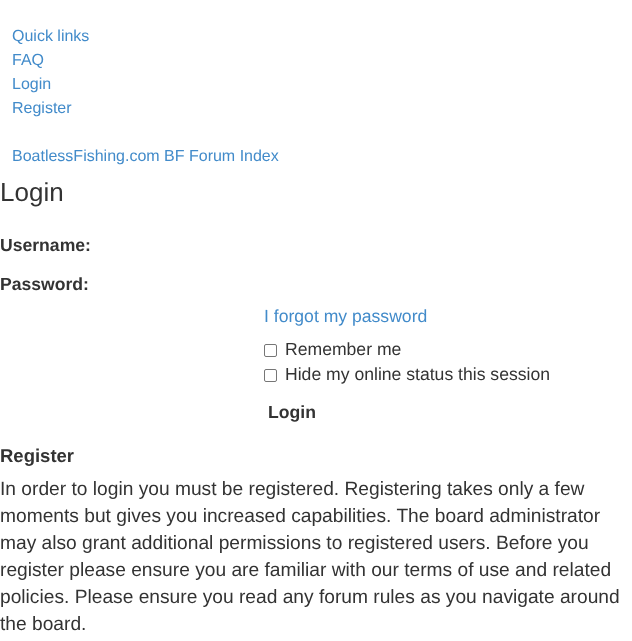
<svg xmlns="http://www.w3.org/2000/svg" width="632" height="641">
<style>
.a{font:16px Liberation Sans;fill:#428bca}
.b{font:26px Liberation Sans;fill:#333}
.c{font:bold 17.6px Liberation Sans;fill:#333}
.d{font:17.6px Liberation Sans;fill:#428bca}
.e{font:17.6px Liberation Sans;fill:#333}
.f{font:bold 18.5px Liberation Sans;fill:#333}
.g{font:19.2px Liberation Sans;fill:#333}
</style>
<rect width="100%" height="100%" fill="#fff"/>
<rect fill="none" stroke="#767676" x="264.5" y="344.5" width="12" height="12" rx="1.5"/>
<rect fill="none" stroke="#767676" x="264.5" y="369.5" width="12" height="12" rx="1.5"/>
<text class="a" x="12" y="41">Quick links</text>
<text class="a" x="12" y="65">FAQ</text>
<text class="a" x="12" y="89">Login</text>
<text class="a" x="12" y="113">Register</text>
<text class="a" x="12" y="161">BoatlessFishing.com BF Forum Index</text>
<text class="b" x="0" y="201">Login</text>
<text class="c" x="0" y="251">Username:</text>
<text class="c" x="0" y="290">Password:</text>
<text class="d" x="264" y="322">I forgot my password</text>
<text class="e" x="285" y="355">Remember me</text>
<text class="e" x="285" y="380">Hide my online status this session</text>
<text class="c" x="268" y="418">Login</text>
<text class="f" x="0" y="462">Register</text>
<text class="g" x="0" y="495">In order to login you must be registered. Registering takes only a few</text>
<text class="g" x="0" y="522">moments but gives you increased capabilities. The board administrator</text>
<text class="g" x="0" y="549">may also grant additional permissions to registered users. Before you</text>
<text class="g" x="0" y="576">register please ensure you are familiar with our terms of use and related</text>
<text class="g" x="0" y="603">policies. Please ensure you read any forum rules as you navigate around</text>
<text class="g" x="0" y="630">the board.</text>
</svg>
